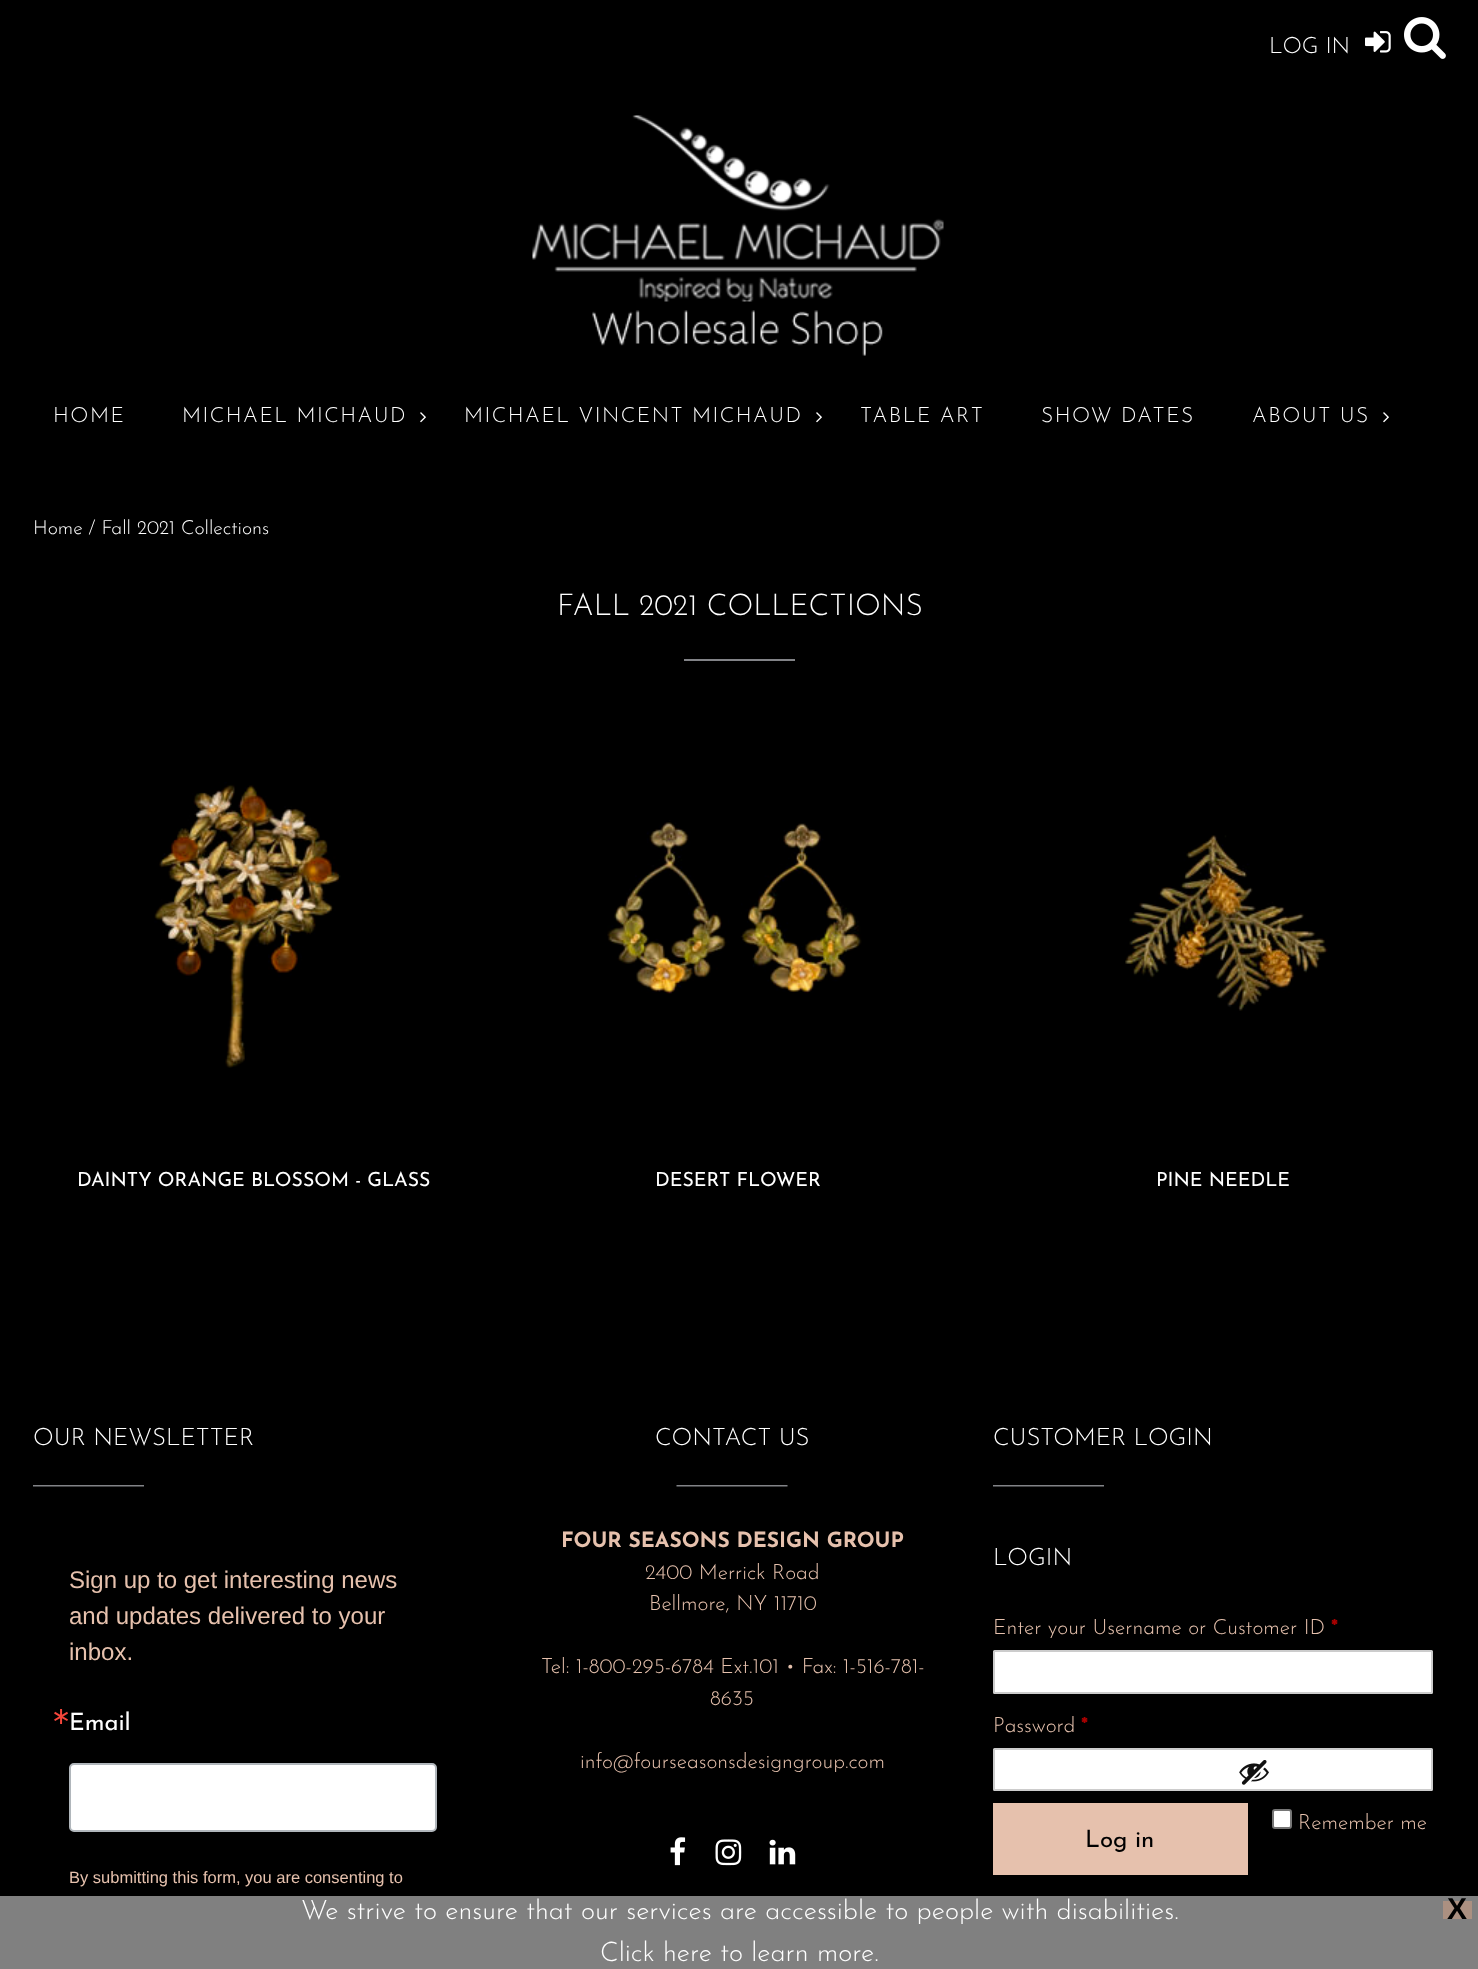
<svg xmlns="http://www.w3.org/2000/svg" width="1478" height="1969">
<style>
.a{font:300 22.5px Josefin Sans;fill:#fff}
.b{font:300 21px Josefin Sans;letter-spacing:1.5px;fill:#fff}
.c{font:300 19.5px Josefin Sans;fill:#fff}
.d{font:300 30px Josefin Sans;fill:#fff}
.e{font:19.5px Josefin Sans;fill:#fff}
.f{font:300 24px Josefin Sans;fill:#fff}
.g{font:24px Liberation Sans;fill:#e6c1ad}
.h{font:24px DejaVu Sans;fill:#f5463b}
.i{font:24px Josefin Sans;fill:#fff}
.j{font:16.5px Liberation Sans;fill:#e6c1ad}
.k{font:bold 21px Josefin Sans;fill:#e6c1ad}
.l{font:300 21px Josefin Sans;fill:#e6c1ad}
.m{font:bold 21px Josefin Sans;fill:#a00}
.n{font:24px Josefin Sans;fill:#000}
.o{font:300 27px Josefin Sans;fill:#fff}
.p{font:bold 30px Liberation Sans;fill:#000}
</style>
<rect width="100%" height="100%" fill="#000"/>
<image href="1.png" x="532" y="115" width="412" height="241"/>
<image href="2.png" x="1365" y="31" width="26" height="22"/>
<image href="3.png" x="1404" y="17" width="42" height="42"/>
<image href="4.png" x="420" y="412" width="6" height="11"/>
<image href="4.png" x="816" y="412" width="6" height="11"/>
<image href="4.png" x="1383" y="412" width="6" height="11"/>
<path fill="#828387" d="M684 659h111v2H684z"/>
<image href="5.png" x="154" y="782" width="187" height="286"/>
<image href="6.png" x="607" y="820" width="255" height="174"/>
<image href="7.png" x="1125" y="835" width="203" height="176"/>
<image href="8.png" x="33" y="1485" width="111" height="2"/>
<rect fill="#fff" stroke="#b0b6bb" stroke-width="2" x="70" y="1764" width="366" height="67" rx="4"/>
<image href="9.png" x="676" y="1485" width="112" height="2"/>
<image href="10.png" x="670" y="1837" width="16" height="29"/>
<image href="11.png" x="715" y="1839" width="27" height="27"/>
<image href="12.png" x="769" y="1839" width="27" height="26"/>
<image href="8.png" x="993" y="1485" width="111" height="2"/>
<rect fill="#fff" stroke="#ccc" stroke-width="2" x="994" y="1651" width="438" height="42" rx="0.5"/>
<rect fill="#fff" stroke="#ccc" stroke-width="2" x="994" y="1749" width="438" height="41" rx="0.5"/>
<image href="13.png" x="1239" y="1760" width="30" height="25"/>
<rect fill="#fff" stroke="#767676" stroke-width="2" x="1273" y="1810" width="18" height="18" rx="2"/>
<path fill="#e6c1ad" d="M993 1803h255v72H993z"/>
<path fill="#000000bf" filter="blur(4px)" d="M0 1889h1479v73H0z"/>
<path fill="#808080" d="M0 1896h1478v73H0z"/>
<path fill="#ab9081" d="M1443 1901h29v18H1443z"/>
<text class="a" x="1269" y="53">LOG IN</text>
<text class="b" x="53" y="422">HOME</text>
<text class="b" x="182" y="422">MICHAEL MICHAUD</text>
<text class="b" x="464" y="422">MICHAEL VINCENT MICHAUD</text>
<text class="b" x="860" y="422">TABLE ART</text>
<text class="b" x="1041" y="422">SHOW DATES</text>
<text class="b" x="1252" y="422">ABOUT US</text>
<text class="c" x="33" y="534">Home / Fall 2021 Collections</text>
<text class="d" x="557" y="615">FALL 2021 COLLECTIONS</text>
<text class="e" x="77" y="1186">DAINTY ORANGE BLOSSOM - GLASS</text>
<text class="e" x="655" y="1186">DESERT FLOWER</text>
<text class="e" x="1156" y="1186">PINE NEEDLE</text>
<text class="f" x="33" y="1445">OUR NEWSLETTER</text>
<text class="g" x="69" y="1588">Sign up to get interesting news</text>
<text class="g" x="69" y="1624">and updates delivered to your</text>
<text class="g" x="69" y="1660">inbox.</text>
<text class="h" x="51" y="1724">∗</text>
<text class="i" x="69" y="1730">Email</text>
<text class="j" x="69" y="1883">By submitting this form, you are consenting to</text>
<text class="f" x="655" y="1445">CONTACT US</text>
<text class="k" x="561" y="1547">FOUR SEASONS DESIGN GROUP</text>
<text class="l" x="645" y="1579">2400 Merrick Road</text>
<text class="l" x="649" y="1610">Bellmore, NY 11710</text>
<text class="l" x="541" y="1673">Tel: 1-800-295-6784 Ext.101 • Fax: 1-516-781-</text>
<text class="l" x="710" y="1705">8635</text>
<text class="l" x="580" y="1768">info@fourseasonsdesigngroup.com</text>
<text class="f" x="993" y="1445">CUSTOMER LOGIN</text>
<text class="f" x="993" y="1565">LOGIN</text>
<text class="l" x="993" y="1634">Enter your Username or Customer ID</text>
<text class="m" x="1331" y="1634">*</text>
<text class="l" x="993" y="1732">Password</text>
<text class="m" x="1081" y="1732">*</text>
<text class="l" x="1298" y="1829">Remember me</text>
<text class="n" x="1085" y="1847">Log in</text>
<text class="o" x="301" y="1919">We strive to ensure that our services are accessible to people with disabilities.</text>
<text class="o" x="600" y="1961">Click here to learn more.</text>
<text class="p" x="1447" y="1919">X</text>
</svg>
